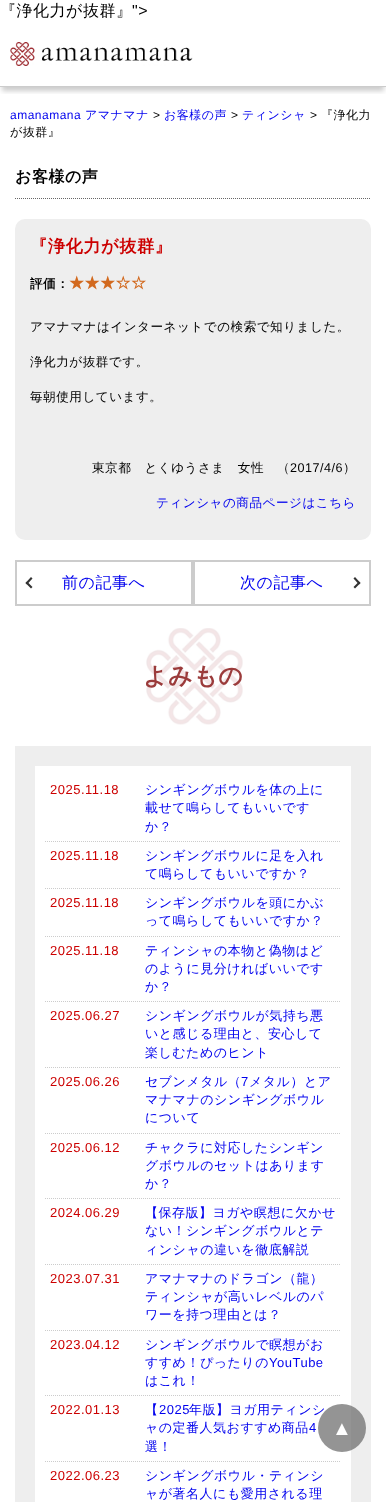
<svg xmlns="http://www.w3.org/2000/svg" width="386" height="1502">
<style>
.a{font:500 16px WenQuanYi Zen Hei;letter-spacing:0.5px;fill:#000}
.b{font:16px Liberation Sans;letter-spacing:0.5px;fill:#000}
.c{font:12px Liberation Sans;letter-spacing:0.5px;fill:#00e}
.d{font:500 12px WenQuanYi Zen Hei;letter-spacing:0.5px;fill:#00e}
.e{font:12px Liberation Sans;letter-spacing:0.5px;fill:#000}
.f{font:500 12px WenQuanYi Zen Hei;letter-spacing:0.5px;fill:#000}
.g{font:bold 16px WenQuanYi Zen Hei;letter-spacing:0.5px;fill:#000}
.h{font:bold 17.25px WenQuanYi Zen Hei;letter-spacing:0.5px;fill:#c00}
.i{font:bold 12.6px WenQuanYi Zen Hei;letter-spacing:0.5px;fill:#000}
.j{font:bold 15px WenQuanYi Zen Hei;letter-spacing:0.5px;fill:#d2691e}
.k{font:500 12.6px WenQuanYi Zen Hei;letter-spacing:0.5px;fill:#000}
.l{font:12.6px Liberation Sans;letter-spacing:0.5px;fill:#000}
.m{font:500 12.6px WenQuanYi Zen Hei;letter-spacing:0.5px;fill:#00e}
.n{font:500 16px WenQuanYi Zen Hei;letter-spacing:0.5px;fill:#00e}
.o{font:bold 24px WenQuanYi Zen Hei;letter-spacing:0.5px;fill:#9b3b3b}
.p{font:13px Liberation Sans;letter-spacing:0.5px;fill:#c00}
.q{font:500 13px WenQuanYi Zen Hei;letter-spacing:0.5px;fill:#00e}
.r{font:13px Liberation Sans;letter-spacing:0.5px;fill:#00e}
.s{font:20px Liberation Sans;letter-spacing:0.5px;fill:#fff}
</style>
<defs>
<clipPath id="clip1"><path d="M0 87h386v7H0z"/></clipPath>
</defs>
<rect width="100%" height="100%" fill="#fff"/>
<g clip-path="url(#clip1)">
<path fill="#00000033" filter="blur(2.5px)" d="M2 30h382v61H2z"/>
</g>
<path fill="#ccc" d="M0 86h386v1H0z"/>
<image href="1.png" x="10" y="42" width="183" height="24"/>
<path fill="none" stroke="#666" stroke-dasharray="1 1" d="M15 198.5h356"/>
<rect fill="#eee" x="15" y="219" width="356" height="321" rx="10"/>
<path fill="none" stroke="#ccc" stroke-width="2" d="M16 561h176v44H16z"/>
<path fill="#333" d="M27 581.5l5.5 5.5l-1.5 1.5l-5.5-5.5z"/>
<path fill="#333" d="M31 577l1.5 1.5l-5.5 6l-1.5-1.5z"/>
<path fill="none" stroke="#ccc" stroke-width="2" d="M194 561h176v44H194z"/>
<path fill="#333" d="M355 577l5.5 6l-1.5 1.5l-5.5-6z"/>
<path fill="#333" d="M359 581.5l1.5 1.5l-5.5 5.5l-1.5-1.5z"/>
<image href="2.png" x="146" y="628" width="97" height="97"/>
<path fill="#eee" d="M15 746h356v756H15z"/>
<path fill="#fff" d="M35 766h316v736H35z"/>
<path fill="none" stroke="#ccc" stroke-dasharray="1 1" d="M45 841.5h296"/>
<path fill="none" stroke="#ccc" stroke-dasharray="1 1" d="M45 888.5h296"/>
<path fill="none" stroke="#ccc" stroke-dasharray="1 1" d="M45 936.5h296"/>
<path fill="none" stroke="#ccc" stroke-dasharray="1 1" d="M45 1001.5h296"/>
<path fill="none" stroke="#ccc" stroke-dasharray="1 1" d="M45 1067.5h296"/>
<path fill="none" stroke="#ccc" stroke-dasharray="1 1" d="M45 1133.5h296"/>
<path fill="none" stroke="#ccc" stroke-dasharray="1 1" d="M45 1198.5h296"/>
<path fill="none" stroke="#ccc" stroke-dasharray="1 1" d="M45 1264.5h296"/>
<path fill="none" stroke="#ccc" stroke-dasharray="1 1" d="M45 1330.5h296"/>
<path fill="none" stroke="#ccc" stroke-dasharray="1 1" d="M45 1395.5h296"/>
<path fill="none" stroke="#ccc" stroke-dasharray="1 1" d="M45 1461.5h296"/>
<text class="a" x="0" y="16">『浄化力が抜群』</text>
<text class="b" x="132" y="16">"&gt;</text>
<text class="c" x="10" y="119">amanamana</text>
<text class="d" x="85" y="119">アマナマナ</text>
<text class="e" x="153" y="119">&gt;</text>
<text class="d" x="164" y="119">お客様の声</text>
<text class="e" x="231" y="119">&gt;</text>
<text class="d" x="242" y="119">ティンシャ</text>
<text class="e" x="310" y="119">&gt;</text>
<text class="f" x="321" y="119">『浄化力</text>
<text class="f" x="10" y="136">が抜群』</text>
<text class="g" x="15" y="182">お客様の声</text>
<text class="h" x="30" y="252">『浄化力が抜群』</text>
<text class="i" x="30" y="288">評価：</text>
<text class="j" x="69" y="288">★★★☆☆</text>
<text class="k" x="30" y="331">アマナマナはインターネットでの検索で知りました。</text>
<text class="k" x="30" y="366">浄化力が抜群です。</text>
<text class="k" x="30" y="401">毎朝使用しています。</text>
<text class="k" x="92" y="472">東京都　とくゆうさま　女性　（</text>
<text class="l" x="290" y="472">2017/4/6</text>
<text class="k" x="343" y="472">）</text>
<text class="m" x="156" y="507">ティンシャの商品ページはこちら</text>
<text class="n" x="62" y="588">前の記事へ</text>
<text class="n" x="240" y="588">次の記事へ</text>
<text class="o" x="143" y="684">よみもの</text>
<text class="p" x="50" y="794">2025.11.18</text>
<text class="q" x="145" y="794">シンギングボウルを体の上に</text>
<text class="q" x="145" y="812">載せて鳴らしてもいいです</text>
<text class="q" x="145" y="831">か？</text>
<text class="p" x="50" y="860">2025.11.18</text>
<text class="q" x="145" y="860">シンギングボウルに足を入れ</text>
<text class="q" x="145" y="878">て鳴らしてもいいですか？</text>
<text class="p" x="50" y="907">2025.11.18</text>
<text class="q" x="145" y="907">シンギングボウルを頭にかぶ</text>
<text class="q" x="145" y="925">って鳴らしてもいいですか？</text>
<text class="p" x="50" y="955">2025.11.18</text>
<text class="q" x="145" y="955">ティンシャの本物と偽物はど</text>
<text class="q" x="145" y="973">のように見分ければいいです</text>
<text class="q" x="145" y="991">か？</text>
<text class="p" x="50" y="1020">2025.06.27</text>
<text class="q" x="145" y="1020">シンギングボウルが気持ち悪</text>
<text class="q" x="145" y="1038">いと感じる理由と、安心して</text>
<text class="q" x="145" y="1057">楽しむためのヒント</text>
<text class="p" x="50" y="1086">2025.06.26</text>
<text class="q" x="145" y="1086">セブンメタル（</text>
<text class="r" x="241" y="1086">7</text>
<text class="q" x="249" y="1086">メタル）とア</text>
<text class="q" x="145" y="1104">マナマナのシンギングボウル</text>
<text class="q" x="145" y="1122">について</text>
<text class="p" x="50" y="1152">2025.06.12</text>
<text class="q" x="145" y="1152">チャクラに対応したシンギン</text>
<text class="q" x="145" y="1170">グボウルのセットはあります</text>
<text class="q" x="145" y="1188">か？</text>
<text class="p" x="50" y="1217">2024.06.29</text>
<text class="q" x="145" y="1217">【保存版】ヨガや瞑想に欠かせ</text>
<text class="q" x="145" y="1235">ない！シンギングボウルとテ</text>
<text class="q" x="145" y="1254">ィンシャの違いを徹底解説</text>
<text class="p" x="50" y="1283">2023.07.31</text>
<text class="q" x="145" y="1283">アマナマナのドラゴン（龍）</text>
<text class="q" x="145" y="1301">ティンシャが高いレベルのパ</text>
<text class="q" x="145" y="1319">ワーを持つ理由とは？</text>
<text class="p" x="50" y="1349">2023.04.12</text>
<text class="q" x="145" y="1349">シンギングボウルで瞑想がお</text>
<text class="q" x="145" y="1367">すすめ！ぴったりの</text>
<text class="r" x="269" y="1367">YouTube</text>
<text class="q" x="145" y="1385">はこれ！</text>
<text class="p" x="50" y="1414">2022.01.13</text>
<text class="q" x="145" y="1414">【</text>
<text class="r" x="159" y="1414">2025</text>
<text class="q" x="189" y="1414">年版】ヨガ用ティンシ</text>
<text class="q" x="145" y="1432">ャの定番人気おすすめ商品</text>
<text class="r" x="309" y="1432">4</text>
<text class="q" x="145" y="1451">選！</text>
<text class="p" x="50" y="1480">2022.06.23</text>
<text class="q" x="145" y="1480">シンギングボウル・ティンシ</text>
<text class="q" x="145" y="1498">ャが著名人にも愛用される理</text>
<circle fill="#666666b3" cx="342" cy="1428" r="24"/>
<text class="s" x="332" y="1435">▲</text>
</svg>
